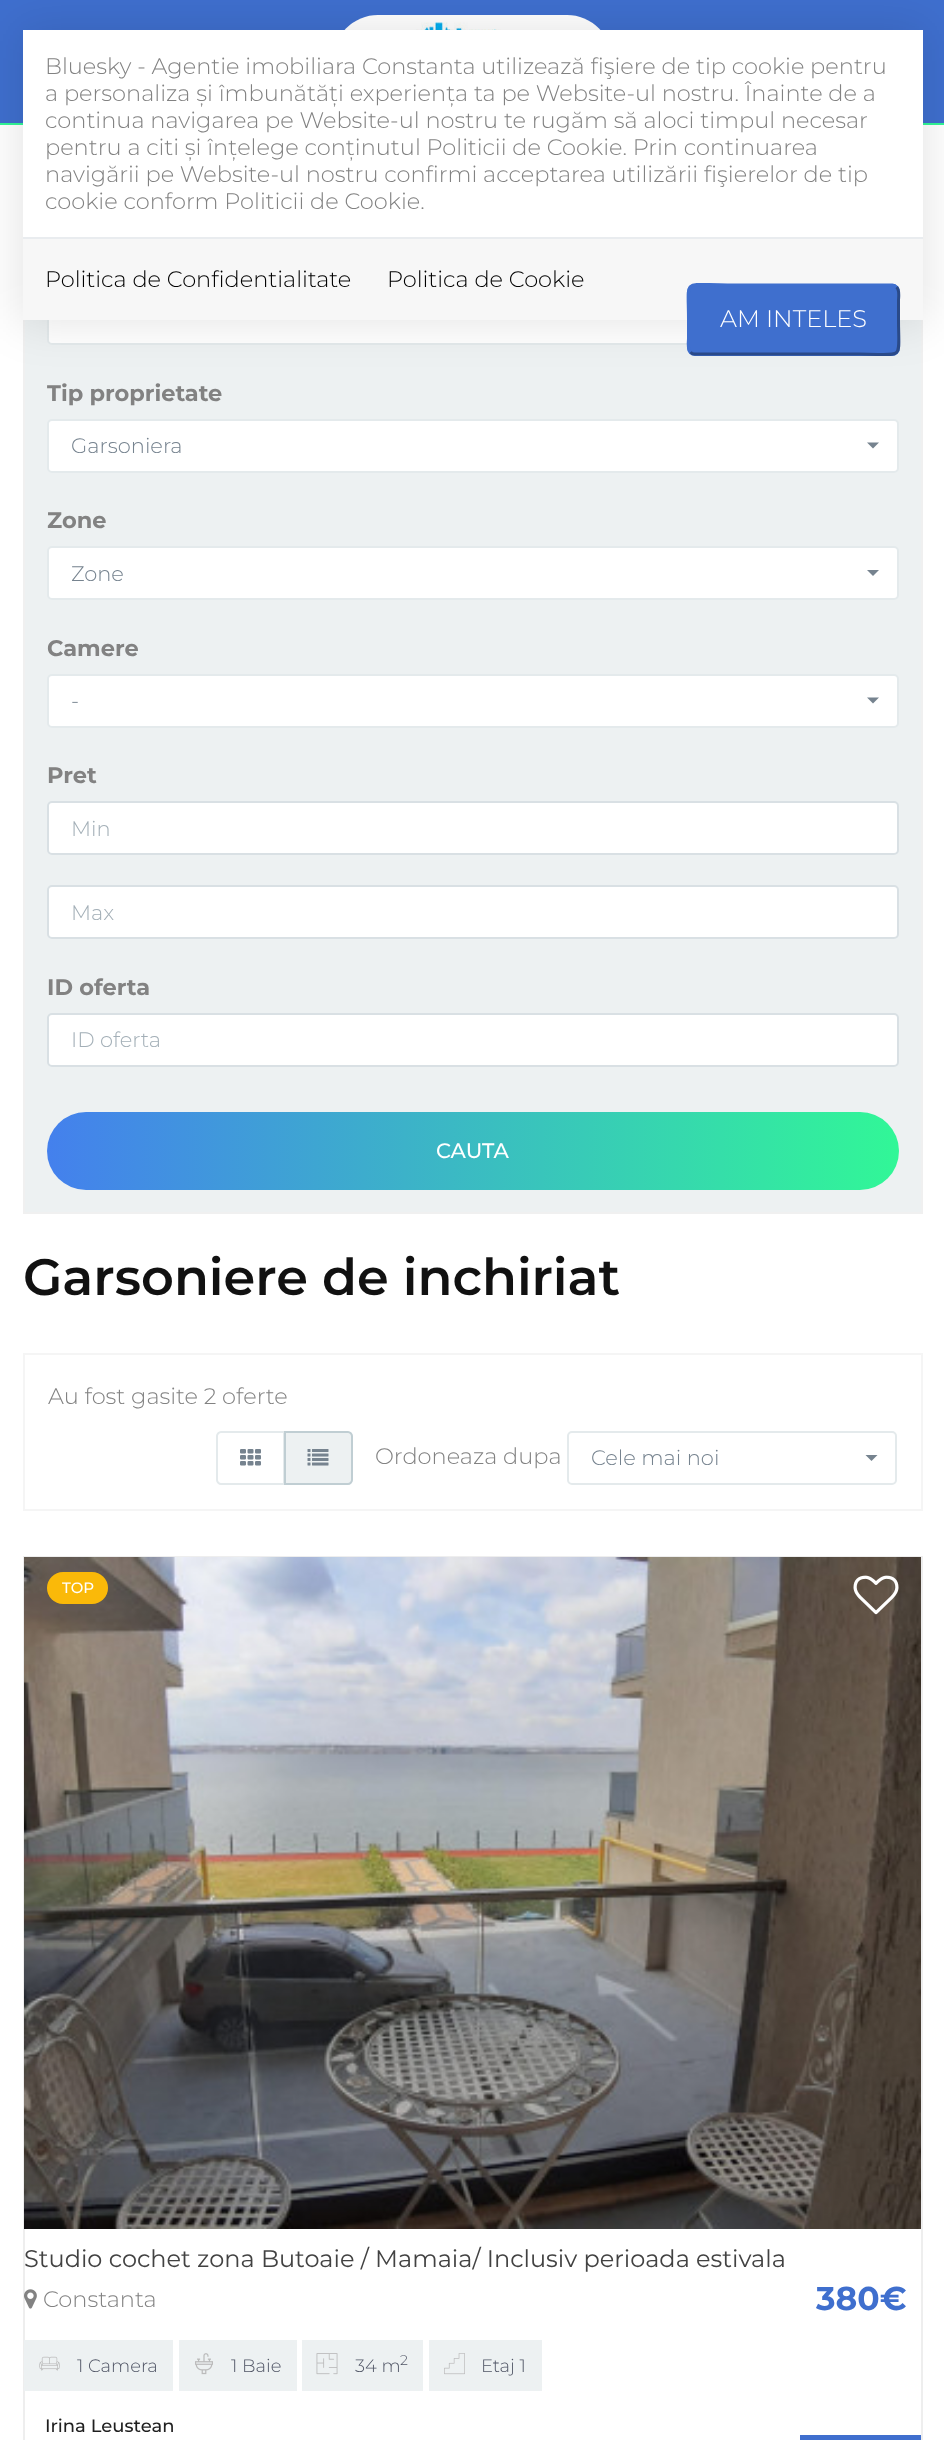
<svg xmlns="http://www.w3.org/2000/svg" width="944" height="2440">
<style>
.a{font:300 22.5px Montserrat;fill:#828282}
.b{font:300 22.5px Montserrat;fill:#000}
.c{font:300 24px Montserrat;fill:#fff}
.d{font:bold 22.5px Montserrat;fill:#828282}
.e{font:300 21px Montserrat;fill:#76838f}
.f{font:300 21px Montserrat;fill:#a3afb7}
.g{font:500 21px Montserrat;fill:#fff}
.h{font:600 51px Montserrat;fill:#111}
.i{font:500 15px Montserrat;fill:#fff}
.j{font:24px Montserrat;fill:#424242}
.k{font:bold 33px Montserrat;fill:#3f6fce}
.l{font:300 18px Montserrat;fill:#515666}
.m{font:300 14px Montserrat;fill:#515666}
.n{font:500 18px Montserrat;fill:#1f1f1f}
</style>
<defs>
<linearGradient id="g1" gradientUnits="userSpaceOnUse" x1="47" y1="1151" x2="899" y2="1151"><stop offset="0" stop-color="#4480ed"/><stop offset="1" stop-color="#31f797"/></linearGradient>
</defs>
<rect width="100%" height="100%" fill="#fff"/>
<path fill="#3f6fce" d="M0 0h944v123H0z"/>
<path fill="#31f797" d="M0 123h944v2H0z"/>
<rect fill="#fff" x="333" y="15" width="279" height="90" rx="45"/>
<image href="1.png" x="408" y="22" width="107" height="8"/>
<path fill="#edf1f2" d="M25 320h896v892H25z"/>
<path fill="none" stroke="#f0f0f0" stroke-width="2" d="M24 156h898v1057H24z"/>
<rect fill="#fff" stroke="#e4eaec" stroke-width="2" x="48" y="292" width="850" height="52" rx="4"/>
<path fill="#0000001a" filter="blur(22.5px)" d="M18 26h909v298H18z"/>
<path fill="#fff" d="M23 30h900v207H23z"/>
<path fill="#f7f7f7" d="M23 239h900v81H23z"/>
<path fill="#e9ecef" d="M23 237h900v2H23z"/>
<rect fill="#3f6fce" x="687" y="284" width="213" height="72" rx="8"/>
<path fill="none" stroke="#2a4a89" stroke-width="3" d="M896.5 287c3.5 3 2 10.5 2 13.5v19c0 42.5 7 34.5-39 34.5h-165c-1.5 0-3-.5-4-2"/>
<path fill="none" stroke="#3f6fce" stroke-width="3" d="M690.5 352c-3.5-3-2-10.5-2-13.5v-19c0-42.5-7-34.5 39-34.5h165c1.5 0 3 .5 4 2"/>
<rect fill="#fff" stroke="#e4eaec" stroke-width="2" x="48" y="420" width="850" height="52" rx="4"/>
<path fill="#76838f" d="M867 442.5h12l-6 6z"/>
<rect fill="#fff" stroke="#e4eaec" stroke-width="2" x="48" y="547" width="850" height="52" rx="4"/>
<path fill="#76838f" d="M867 570h12l-6 6z"/>
<rect fill="#fff" stroke="#e4eaec" stroke-width="2" x="48" y="675" width="850" height="52" rx="4"/>
<path fill="#76838f" d="M867 697.5h12l-6 6z"/>
<rect fill="#fff" stroke="#d9e0e4" stroke-width="2" x="48" y="802" width="850" height="52" rx="4"/>
<rect fill="#fff" stroke="#d9e0e4" stroke-width="2" x="48" y="886" width="850" height="52" rx="4"/>
<rect fill="#fff" stroke="#d9e0e4" stroke-width="2" x="48" y="1014" width="850" height="52" rx="4"/>
<rect fill="url(#g1)" x="47" y="1112" width="852" height="78" rx="39"/>
<path fill="none" stroke="#f5f5f5" stroke-width="2" d="M24 1354h898v156H24z"/>
<path fill="none" stroke="#e4eaec" stroke-width="2" d="M221 1432h63v52h-63c-2 0-4-2-4-4v-44c0-2 2-4 4-4z"/>
<image href="2.png" x="240" y="1449" width="21" height="17"/>
<path fill="#edf1f2" stroke="#c0ced3" stroke-width="2" d="M285 1432h63c2 0 4 2 4 4v44c0 2-2 4-4 4h-63z"/>
<image href="3.png" x="307" y="1449" width="22" height="17"/>
<rect fill="none" stroke="#e4eaec" stroke-width="2" x="568" y="1432" width="328" height="52" rx="4"/>
<path fill="#76838f" d="M865.5 1455h12l-6 6z"/>
<path fill="none" stroke="#eee" stroke-width="2" d="M24 1557h898v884H24z"/>
<image href="4.png" x="24" y="1557" width="897" height="672"/>
<rect fill="#fab909" x="47" y="1572" width="61" height="32" rx="16"/>
<image href="5.png" x="853" y="1575" width="46" height="40"/>
<image href="6.png" x="24" y="2289" width="13" height="20"/>
<path fill="#edf1f2" d="M24 2340h149v51H24z"/>
<image href="7.png" x="39" y="2356" width="21" height="15"/>
<path fill="#edf1f2" d="M179 2340h118v51H179z"/>
<image href="8.png" x="195" y="2353" width="18" height="22"/>
<path fill="#edf1f2" d="M302 2340h121v51H302z"/>
<image href="9.png" x="316" y="2353" width="22" height="22"/>
<path fill="#edf1f2" d="M429 2340h113v51H429z"/>
<image href="10.png" x="444" y="2353" width="21" height="22"/>
<path fill="#3f6fce" d="M800 2435h121v5H800z"/>
<text class="a" x="45" y="74">Bluesky - Agentie imobiliara Constanta utilizează fişiere de tip cookie pentru</text>
<text class="a" x="45" y="101">a personaliza și îmbunătăți experiența ta pe Website-ul nostru. Înainte de a</text>
<text class="a" x="45" y="128">continua navigarea pe Website-ul nostru te rugăm să aloci timpul necesar</text>
<text class="a" x="45" y="155">pentru a citi și înțelege conținutul Politicii de Cookie. Prin continuarea</text>
<text class="a" x="45" y="182">navigării pe Website-ul nostru confirmi acceptarea utilizării fişierelor de tip</text>
<text class="a" x="45" y="209">cookie conform Politicii de Cookie.</text>
<text class="b" x="45" y="287">Politica de Confidentialitate</text>
<text class="b" x="387" y="287">Politica de Cookie</text>
<text class="c" x="720" y="327">AM INTELES</text>
<text class="d" x="47" y="401">Tip proprietate</text>
<text class="e" x="71" y="453">Garsoniera</text>
<text class="d" x="47" y="528">Zone</text>
<text class="e" x="71" y="581">Zone</text>
<text class="d" x="47" y="656">Camere</text>
<text class="e" x="71" y="708">-</text>
<text class="d" x="47" y="783">Pret</text>
<text class="f" x="71" y="836">Min</text>
<text class="f" x="71" y="920">Max</text>
<text class="d" x="47" y="995">ID oferta</text>
<text class="f" x="71" y="1047">ID oferta</text>
<text class="g" x="436" y="1158">CAUTA</text>
<text class="h" x="23" y="1295">Garsoniere de inchiriat</text>
<text class="a" x="48" y="1404">Au fost gasite 2 oferte</text>
<text class="a" x="375" y="1464">Ordoneaza dupa</text>
<text class="e" x="591" y="1465">Cele mai noi</text>
<text class="i" x="62" y="1593">TOP</text>
<text class="j" x="24" y="2267">Studio cochet zona Butoaie / Mamaia/ Inclusiv perioada estivala</text>
<text class="a" x="43" y="2307">Constanta</text>
<text class="k" x="816" y="2310">380€</text>
<text class="l" x="77" y="2372">1 Camera</text>
<text class="l" x="231" y="2372">1 Baie</text>
<text class="l" x="355" y="2372">34 m</text>
<text class="m" x="400" y="2365">2</text>
<text class="l" x="481" y="2372">Etaj 1</text>
<text class="n" x="45" y="2432">Irina Leustean</text>
</svg>
